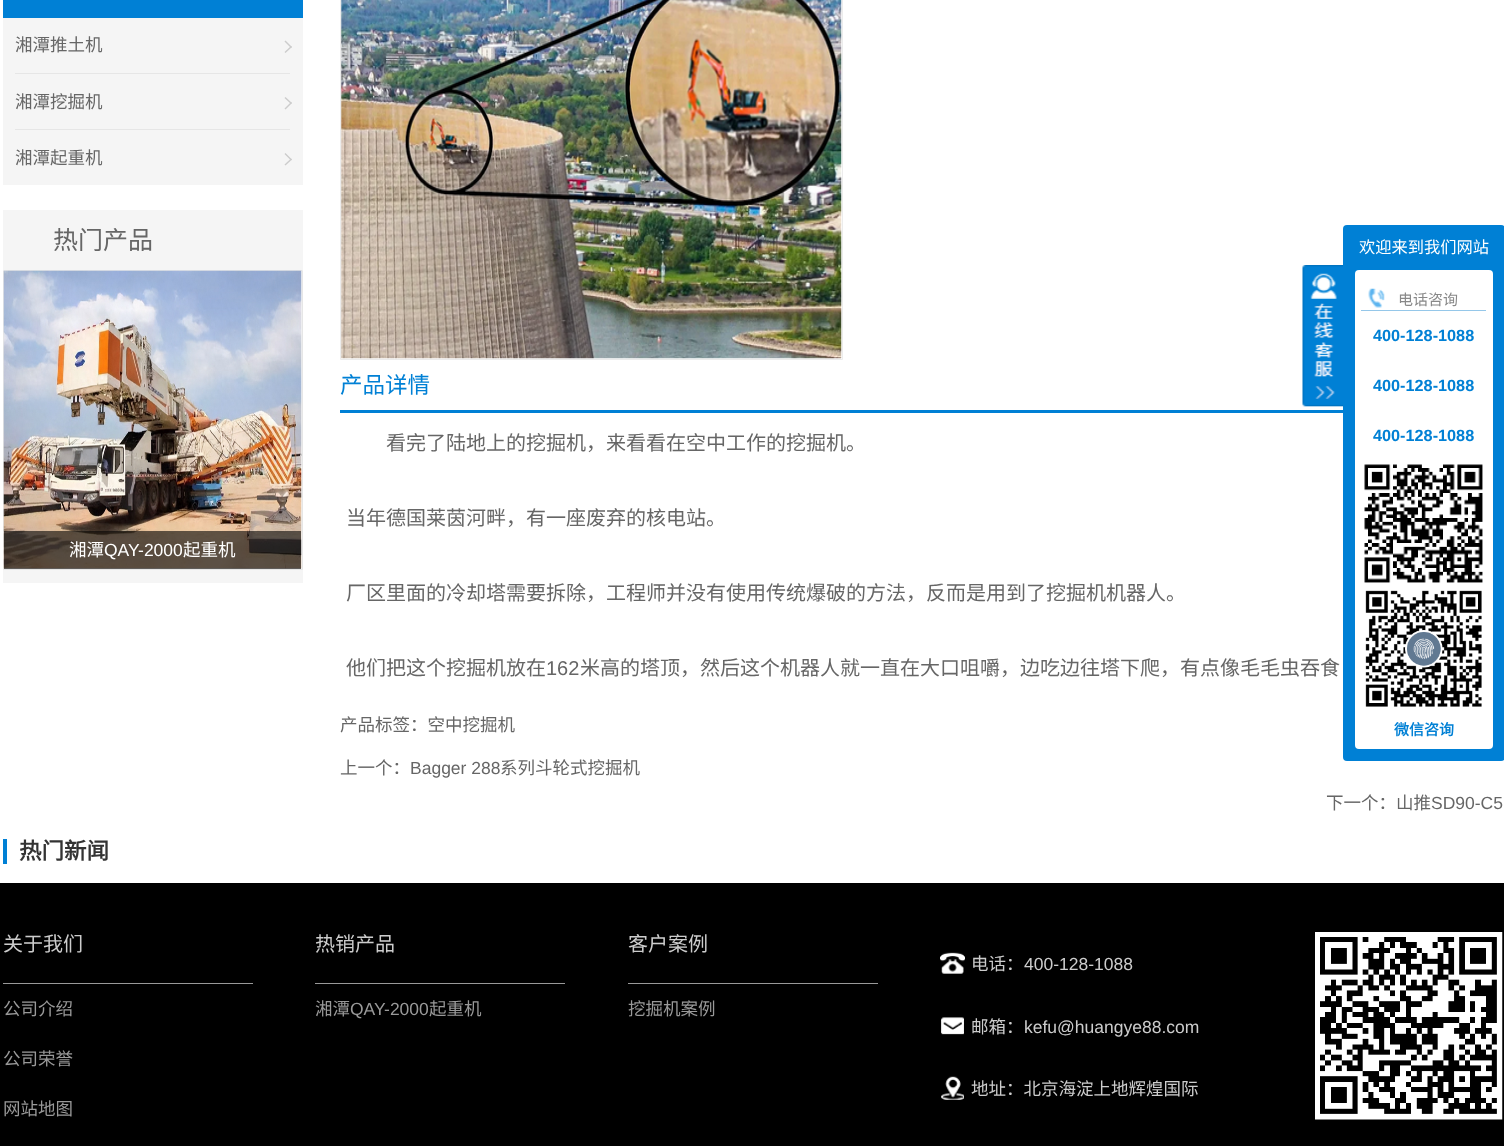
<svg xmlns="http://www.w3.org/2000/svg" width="1504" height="1146">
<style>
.a{font:17.5px Noto Sans CJK SC;fill:#666}
.b{font:25px Noto Sans CJK SC;fill:#666}
.c{font:17.5px Noto Sans CJK SC;fill:#fff}
.d{font:17.5px Liberation Sans;fill:#fff}
.e{font:22.5px Noto Sans CJK SC;fill:#0080d5}
.f{font:20px Noto Sans CJK SC;fill:#666}
.g{font:20px Liberation Sans;fill:#666}
.h{font:17.5px Liberation Sans;fill:#666}
.i{font:16.25px Noto Sans CJK SC;fill:#fff}
.j{font:15px Noto Sans CJK SC;fill:#888}
.k{font:bold 16.25px Liberation Sans;fill:#0080d5}
.l{font:bold 15px Noto Sans CJK SC;fill:#0080d5}
.m{font:bold 22.5px Noto Sans CJK SC;fill:#333}
.n{font:20px Noto Sans CJK SC;fill:#ccc}
.o{font:17.5px Noto Sans CJK SC;fill:#999}
.p{font:17.5px Liberation Sans;fill:#999}
.q{font:17.5px Noto Sans CJK SC;fill:#ccc}
.r{font:17.5px Liberation Sans;fill:#ccc}
</style>
<rect width="100%" height="100%" fill="#fff"/>
<path fill="#0080d5" d="M3 0h300v18H3z"/>
<path fill="#f5f5f5" d="M3 18h300v167H3z"/>
<path fill="#e6e6e6" d="M15 73h275v1H15z"/>
<path fill="#ccc" d="M285.5 40.5l6.5 6.5l-1 1l-6.5-6.5z"/>
<path fill="#ccc" d="M291 46l1 1l-6.5 6l-1-1zm-5.5 51l6.5 6l-1 1l-6.5-6z"/>
<path fill="#e6e6e6" d="M15 129h275v1H15z"/>
<path fill="#ccc" d="M291 102l1 1l-6.5 6.5l-1-1zm-5.5 51l6.5 6.5l-1 1l-6.5-6.5z"/>
<path fill="#ccc" d="M291 158.5l1 1l-6.5 6l-1-1z"/>
<path fill="#f5f5f5" d="M3 210h300v60H3z"/>
<path fill="#f5f5f5" d="M3 271h300v312H3z"/>
<path fill="none" stroke="#e6e6e6" d="M3.5 270.5h299v299H3.5z"/>
<image href="1.png" x="3" y="270" width="299" height="299"/>
<path fill="#00000099" d="M4 531h297v38H4z"/>
<path fill="none" stroke="#ececec" d="M340.5 -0.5h502v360H340.5z"/>
<image href="2.png" x="341" y="0" width="501" height="359"/>
<path fill="#0080d5" d="M340 410h1003v3H340z"/>
<image href="3.png" x="1302" y="265" width="41" height="142"/>
<rect fill="#0080d5" x="1343" y="225" width="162" height="536" rx="4"/>
<rect fill="#fff" x="1355" y="270" width="138" height="479" rx="4"/>
<path fill="#95c7e9" d="M1361 310h125v1H1361z"/>
<image href="4.png" x="1368" y="288" width="17" height="20"/>
<image href="5.png" x="1364" y="464" width="119" height="119"/>
<image href="6.png" x="1365" y="590" width="117" height="117"/>
<path fill="#0080d5" d="M3 839h4v25H3z"/>
<path fill="#000" d="M0 883h1504v263H0z"/>
<path fill="#999" d="M3 983h250v1H3z"/>
<path fill="#999" d="M315 983h250v1H315z"/>
<path fill="#999" d="M628 983h250v1H628z"/>
<image href="7.png" x="940" y="952" width="25" height="22"/>
<image href="8.png" x="941" y="1017" width="23" height="18"/>
<image href="9.png" x="941" y="1076" width="23" height="24"/>
<image href="10.png" x="1315" y="932" width="188" height="188"/>
<text class="a" x="15" y="51">湘潭推土机</text>
<text class="a" x="15" y="108">湘潭挖掘机</text>
<text class="a" x="15" y="164">湘潭起重机</text>
<text class="b" x="53" y="249">热门产品</text>
<text class="c" x="69" y="556">湘潭</text>
<text class="d" x="104" y="556">QAY-2000</text>
<text class="c" x="183" y="556">起重机</text>
<text class="e" x="340" y="393">产品详情</text>
<text class="f" x="386" y="450">看完了陆地上的挖掘机，来看看在空中工作的挖掘机。</text>
<text class="f" x="346" y="525">当年德国莱茵河畔，有一座废弃的核电站。</text>
<text class="f" x="346" y="600">厂区里面的冷却塔需要拆除，工程师并没有使用传统爆破的方法，反而是用到了挖掘机机器人。</text>
<text class="f" x="346" y="675">他们把这个挖掘机放在</text>
<text class="g" x="546" y="675">162</text>
<text class="f" x="580" y="675">米高的塔顶，然后这个机器人就一直在大口咀嚼，边吃边往塔下爬，有点像毛毛虫吞食</text>
<text class="a" x="340" y="731">产品标签：空中挖掘机</text>
<text class="a" x="340" y="774">上一个：</text>
<text class="h" x="410" y="774">Bagger 288</text>
<text class="a" x="500" y="774">系列斗轮式挖掘机</text>
<text class="a" x="1326" y="809">下一个：山推</text>
<text class="h" x="1431" y="809">SD90-C5</text>
<text class="i" x="1359" y="253">欢迎来到我们网站</text>
<text class="j" x="1398" y="305">电话咨询</text>
<text class="k" x="1373" y="341">400-128-1088</text>
<text class="k" x="1373" y="391">400-128-1088</text>
<text class="k" x="1373" y="441">400-128-1088</text>
<text class="l" x="1394" y="735">微信咨询</text>
<text class="m" x="19" y="859">热门新闻</text>
<text class="n" x="3" y="951">关于我们</text>
<text class="o" x="3" y="1015">公司介绍</text>
<text class="o" x="3" y="1065">公司荣誉</text>
<text class="o" x="3" y="1115">网站地图</text>
<text class="n" x="315" y="951">热销产品</text>
<text class="o" x="315" y="1015">湘潭</text>
<text class="p" x="350" y="1015">QAY-2000</text>
<text class="o" x="429" y="1015">起重机</text>
<text class="n" x="628" y="951">客户案例</text>
<text class="o" x="628" y="1015">挖掘机案例</text>
<text class="q" x="971" y="970">电话：</text>
<text class="r" x="1024" y="970">400-128-1088</text>
<text class="q" x="971" y="1033">邮箱：</text>
<text class="r" x="1024" y="1033">kefu@huangye88.com</text>
<text class="q" x="971" y="1095">地址：北京海淀上地辉煌国际</text>
</svg>
